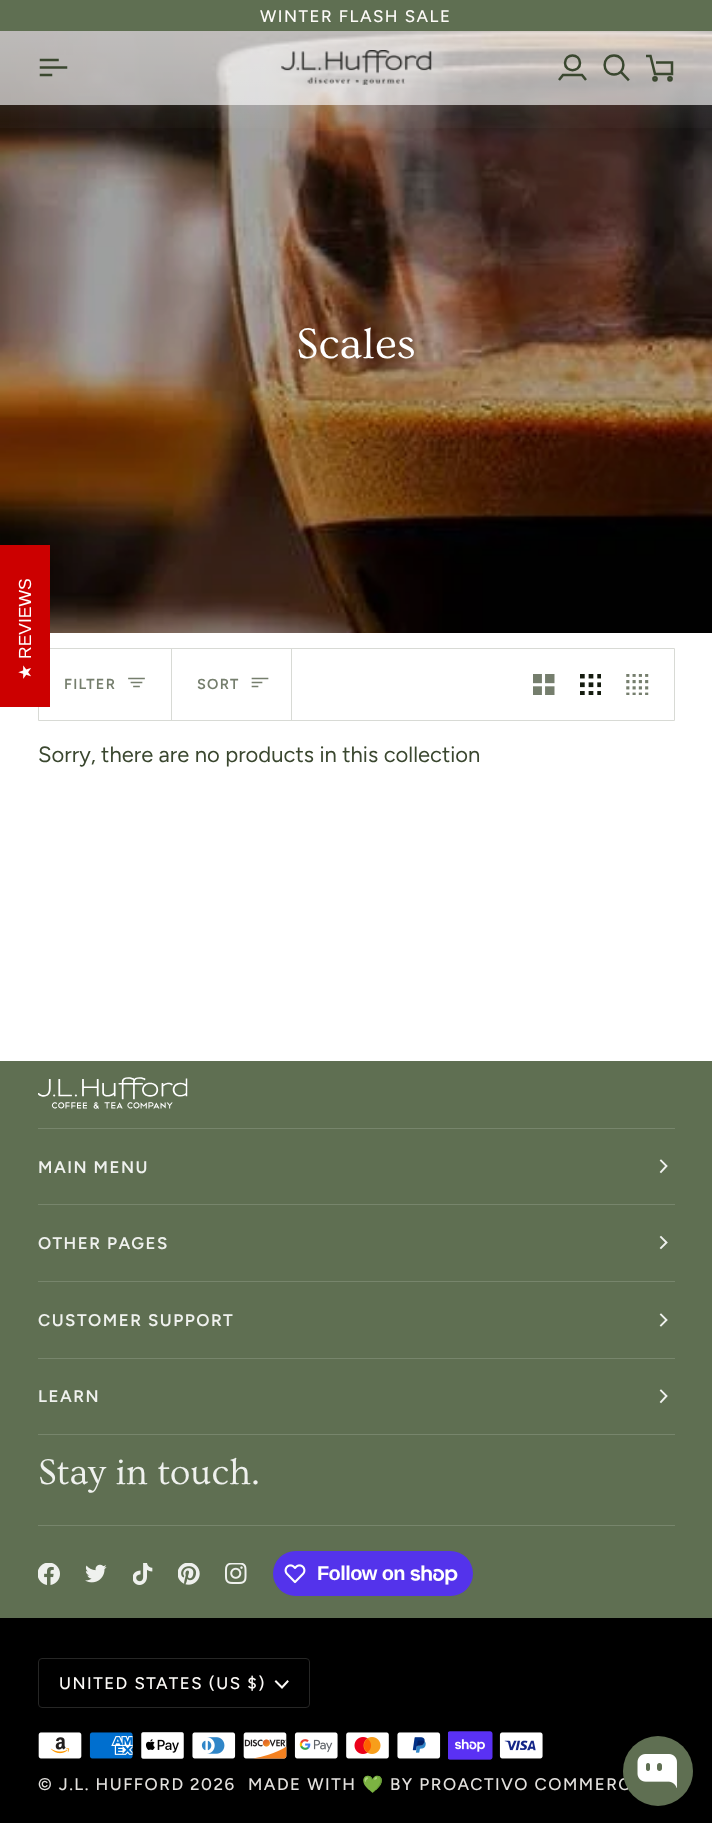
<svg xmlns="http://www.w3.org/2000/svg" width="712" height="1823">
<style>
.a{font:500 16.9px Figtree;letter-spacing:1.5px;fill:#fcfaf7}
.b{font:17.5px Liberation Sans;fill:#fff}
.c{font:17.5px DejaVu Sans;fill:#fff}
.d{font:45px Ovo;fill:#fff}
.e{font:600 14.5px Figtree;letter-spacing:1.25px;fill:#757e6d}
.f{font:22px Figtree;fill:#3a472f}
.g{font:600 16.9px Figtree;letter-spacing:1.5px;fill:#eff1ee}
.h{font:37.5px Ovo;fill:#eff1ee}
.i{font:bold 20px Liberation Sans;letter-spacing:-0.6px;fill:#fff}
.j{font:500 16.9px Figtree;letter-spacing:1.5px;fill:#e3e1de}
.k{font:16.9px Noto Color Emoji;letter-spacing:1.5px;fill:#e3e1de}
</style>
<defs>
<linearGradient id="g1" gradientUnits="userSpaceOnUse" x1="356" y1="31" x2="356" y2="140"><stop offset="0" stop-color="#fff" stop-opacity="0.2"/><stop offset="1" stop-color="#fff" stop-opacity="0"/></linearGradient>
</defs>
<rect width="100%" height="100%" fill="#fff"/>
<path fill="#5f6f52" d="M0 0h712v31H0z"/>
<image href="2.png" x="0" y="31" width="712" height="602"/>
<path fill="#ffffffa1" d="M0 31h712v74H0z"/>
<path fill="url(#g1)" d="M0 31h712v97H0z"/>
<path fill="none" stroke="#3a472f" stroke-width="2.5" stroke-linecap="square" d="M57.5 60h-16.5m25 7.5h-25m10 7.5h-10"/>
<image href="1.png" x="281" y="50" width="151" height="35"/>
<path fill="none" stroke="#3a472f" stroke-width="2.5" d="M559 80l4-5h19l4 5m-6-17c0 9.5-15 9.5-15 0c0-10 15-10 15 0z"/>
<path fill="none" stroke="#3a472f" stroke-width="2.5" stroke-linecap="square" d="M614 74.5c12.5 0 12.5-19 0-19c-12.5 0-12.5 19 0 19zm14 5l-7-7.5"/>
<path fill="none" stroke="#3a472f" stroke-width="2.5" d="M646 56h4.5l4.5 18h17v-11.5h-16"/>
<circle fill="none" stroke="#3a472f" stroke-width="2.5" cx="655" cy="78.8" r="1.6"/>
<circle fill="none" stroke="#3a472f" stroke-width="2.5" cx="670" cy="78.8" r="1.6"/>
<path fill="none" stroke="#d8dad5" d="M38.5 648.5h636v72H38.5z"/>
<path fill="#c00" d="M0 545h50v162H0z"/>
<path fill="#d8dad5" d="M171 649h1v71H171z"/>
<path fill="none" stroke="#757e6d" stroke-width="1.7" stroke-linecap="square" d="M144 678.5h-15m12.5 4h-10m7.5 4h-5"/>
<path fill="#d8dad5" d="M291 649h1v71H291z"/>
<path fill="none" stroke="#757e6d" stroke-width="1.7" stroke-linecap="square" d="M267.5 678.5h-15m9 4h-9m5 4h-5"/>
<image href="3.png" x="533" y="674" width="22" height="21"/>
<image href="4.png" x="580" y="674" width="21" height="21"/>
<image href="5.png" x="626" y="674" width="23" height="21"/>
<path fill="#5f6f52" d="M0 1061h712v557H0z"/>
<image href="6.png" x="38" y="1077" width="150" height="32"/>
<path fill="#77856c" d="M38 1128h637v1H38z"/>
<path fill="#77856c" d="M38 1204h637v1H38z"/>
<path fill="none" stroke="#eff1ee" stroke-width="1.9" stroke-linecap="square" d="M661 1172l5.5-6l-5.5-5.5"/>
<path fill="#77856c" d="M38 1281h637v1H38z"/>
<path fill="none" stroke="#eff1ee" stroke-width="1.9" stroke-linecap="square" d="M661 1248l5.5-5.5l-5.5-5.5"/>
<path fill="#77856c" d="M38 1358h637v1H38z"/>
<path fill="none" stroke="#eff1ee" stroke-width="1.9" stroke-linecap="square" d="M661 1325.5l5.5-5.5l-5.5-5.5"/>
<path fill="#77856c" d="M38 1434h637v1H38z"/>
<path fill="none" stroke="#eff1ee" stroke-width="1.9" stroke-linecap="square" d="M661 1402l5.5-6l-5.5-5.5"/>
<path fill="#77856c" d="M38 1525h637v1H38z"/>
<image href="7.png" x="38" y="1563" width="22" height="22"/>
<image href="8.png" x="85" y="1564" width="22" height="19"/>
<image href="9.png" x="133" y="1563" width="20" height="22"/>
<image href="10.png" x="178" y="1563" width="22" height="22"/>
<image href="11.png" x="225" y="1563" width="22" height="21"/>
<rect fill="#5433eb" x="273" y="1551" width="200" height="45" rx="22.5"/>
<image href="12.png" x="284" y="1564" width="22" height="20"/>
<image href="13.png" x="410" y="1565" width="48" height="20"/>
<path fill="#000" d="M0 1618h712v205H0z"/>
<rect fill="none" stroke="#262625" x="38.5" y="1658.5" width="271" height="49" rx="3.5"/>
<path fill="none" stroke="#fcfaf7" stroke-width="2" stroke-linecap="square" d="M276 1681.5l6 6l5.5-6"/>
<image href="14.png" x="38" y="1732" width="44" height="27"/>
<image href="15.png" x="89" y="1732" width="44" height="27"/>
<image href="16.png" x="141" y="1732" width="43" height="27"/>
<image href="17.png" x="192" y="1732" width="44" height="27"/>
<image href="18.png" x="243" y="1732" width="44" height="27"/>
<image href="19.png" x="294" y="1732" width="44" height="27"/>
<image href="20.png" x="346" y="1732" width="43" height="27"/>
<image href="21.png" x="397" y="1732" width="44" height="27"/>
<image href="22.png" x="448" y="1731" width="45" height="29"/>
<image href="23.png" x="499" y="1732" width="44" height="27"/>
<rect fill="#00000040" filter="blur(7.5px)" x="623" y="1744" width="70" height="70" rx="35"/>
<text class="a" x="260" y="22">WINTER FLASH SALE</text>
<text class="b" x="31" y="659" transform="rotate(-90 31 659)">REVIEWS</text>
<text class="c" x="31" y="680" transform="rotate(-90 31 680)">★</text>
<text class="d" x="296" y="358">Scales</text>
<text class="e" x="64" y="689">FILTER</text>
<text class="e" x="197" y="689">SORT</text>
<text class="f" x="38" y="762">Sorry, there are no products in this collection</text>
<text class="g" x="38" y="1173">MAIN MENU</text>
<text class="g" x="38" y="1249">OTHER PAGES</text>
<text class="g" x="38" y="1326">CUSTOMER SUPPORT</text>
<text class="g" x="38" y="1402">LEARN</text>
<text class="h" x="38" y="1484">Stay in touch.</text>
<text class="i" x="317" y="1580">Follow on</text>
<text class="a" x="59" y="1689">UNITED STATES (US $)</text>
<text class="j" x="38" y="1790">© J.L. HUFFORD</text>
<text class="j" x="190" y="1790">2026</text>
<text class="j" x="248" y="1790">MADE WITH</text>
<text class="k" x="362" y="1790">💚</text>
<text class="j" x="390" y="1790">BY PROACTIVO COMMERC</text>
<circle fill="#5f6f52" cx="658" cy="1771" r="35"/>
<image href="24.png" x="637" y="1754" width="40" height="34"/>
</svg>
